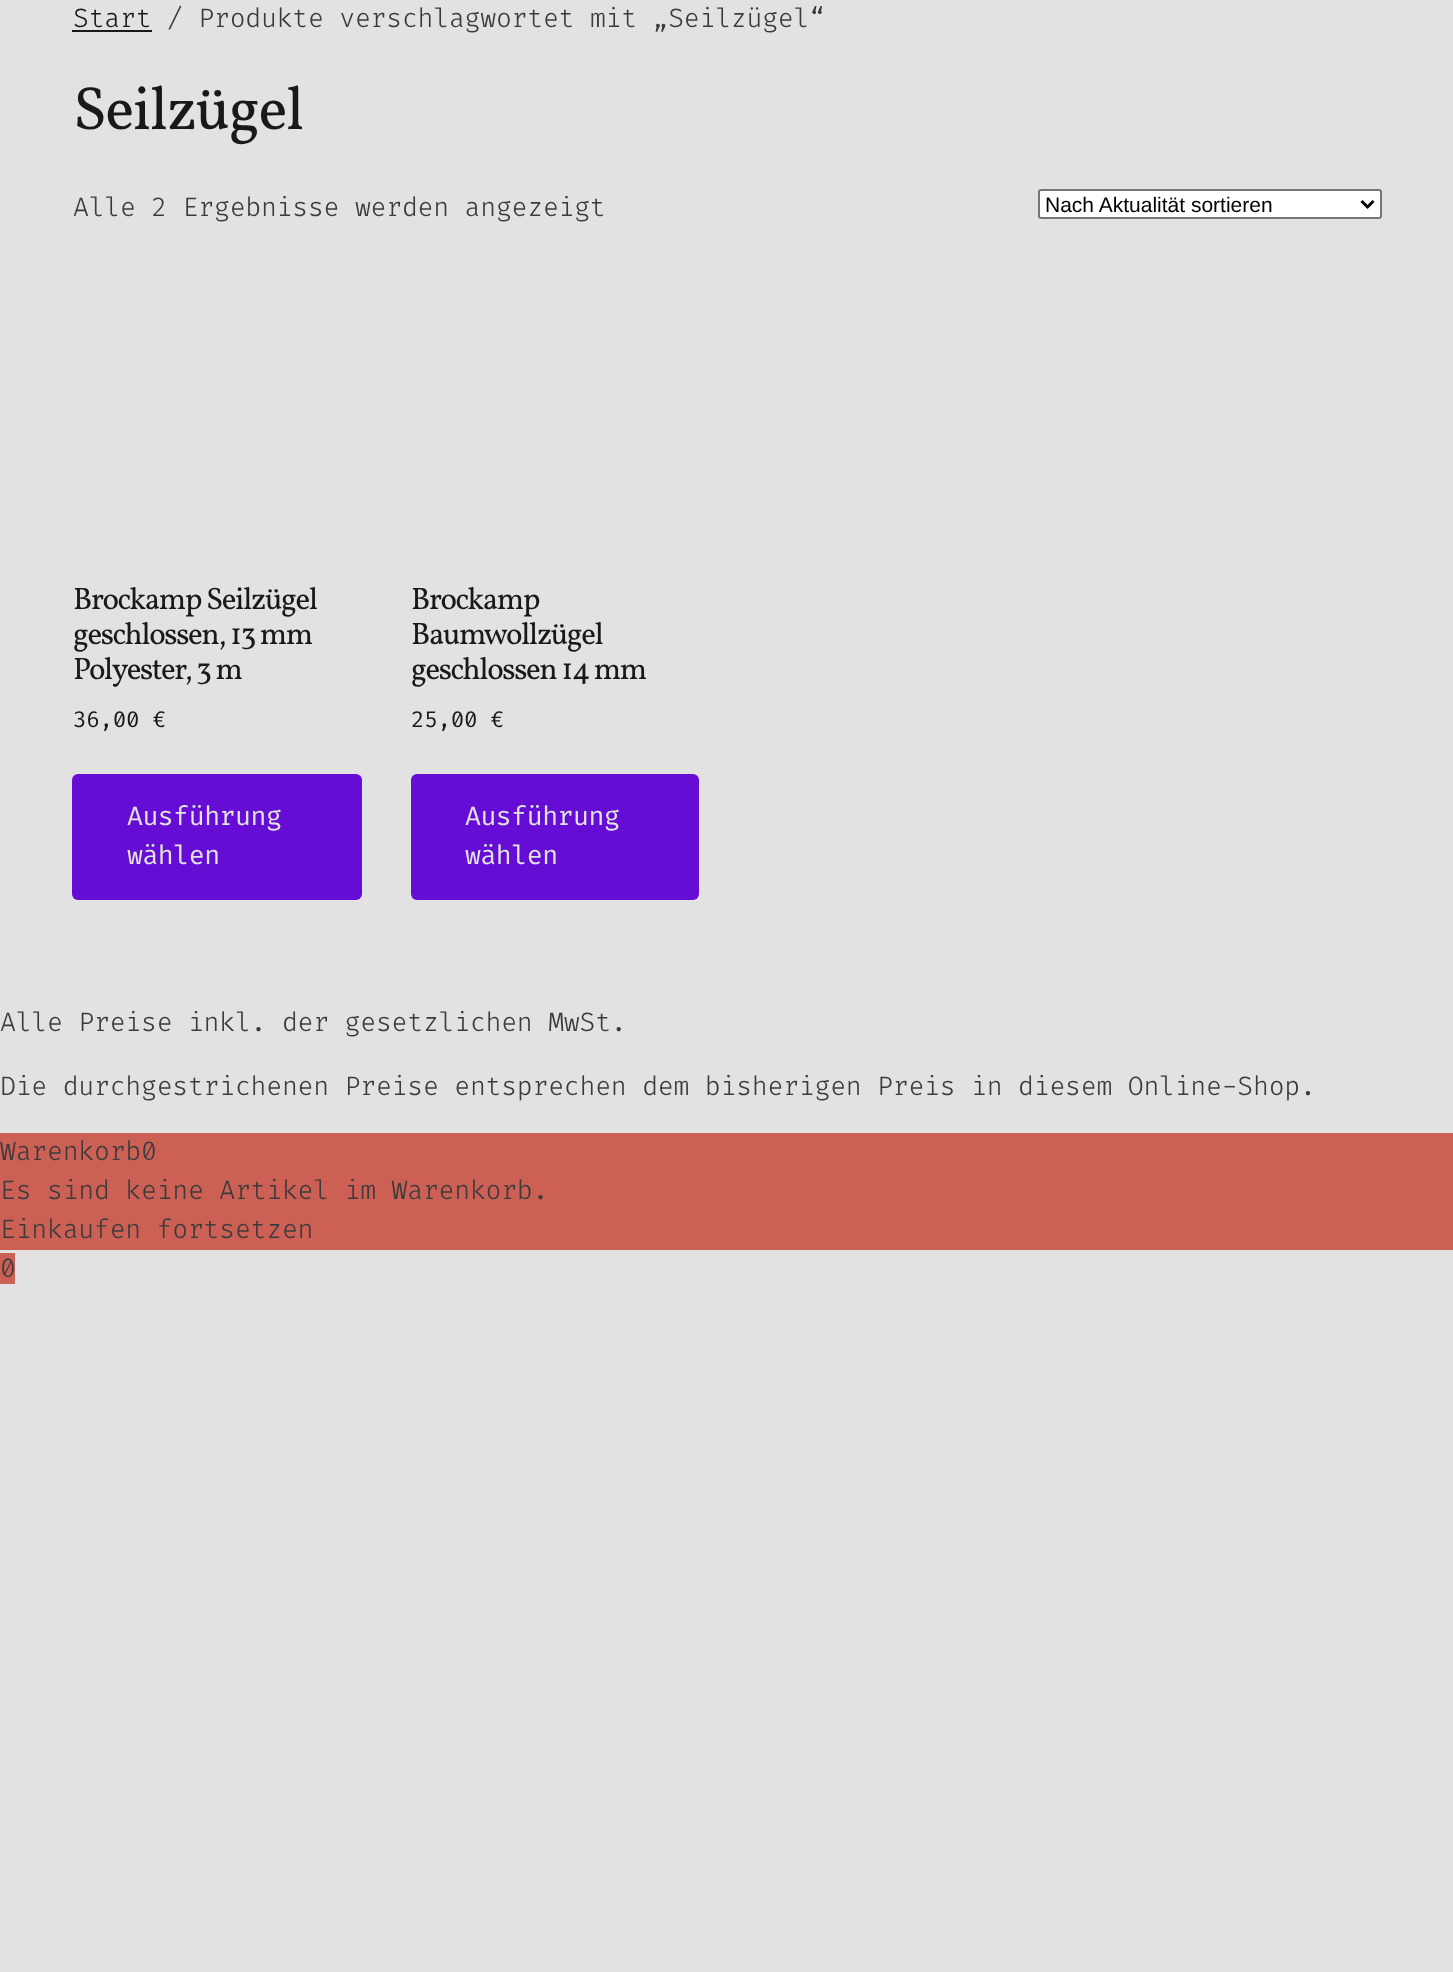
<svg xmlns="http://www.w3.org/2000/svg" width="1453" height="1972">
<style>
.a{font:300 25.9px Fira Code;letter-spacing:-0.27px;fill:#191919}
.b{font:300 25.9px Fira Code;letter-spacing:-0.27px;fill:#3b3b3b}
.c{font:61px Vollkorn;letter-spacing:-1.4px;fill:#191919}
.d{font:21px Liberation Sans;fill:#000}
.e{font:31px Vollkorn;letter-spacing:-1.4px;fill:#191919}
.f{font:22px Fira Code;letter-spacing:-0.27px;fill:#191919}
.g{font:25.9px Fira Code;letter-spacing:-0.5px;fill:#e2e2e2}
</style>
<rect width="100%" height="100%" fill="#e2e2e2"/>
<path fill="#191919" d="M72 30h80v2H72z"/>
<rect fill="#fff" stroke="#767676" stroke-width="2" x="1039" y="190" width="342" height="28" rx="2"/>
<path fill="none" stroke="#000" stroke-width="3" d="M1361.5 201l6 6l6-6"/>
<rect fill="#650dd4" x="72" y="774" width="290" height="126" rx="6"/>
<rect fill="#650dd4" x="411" y="774" width="288" height="126" rx="6"/>
<path fill="#cc6055" d="M0 1133h1453v117H0z"/>
<path fill="#cc6055" d="M0 1253h15v31H0z"/>
<text class="a" x="73" y="27">Start</text>
<text class="b" x="167" y="27">/ Produkte verschlagwortet mit „Seilzügel“</text>
<text class="c" x="73" y="129">Seilzügel</text>
<text class="b" x="73" y="216">Alle 2 Ergebnisse werden angezeigt</text>
<text class="d" x="1045" y="212">Nach Aktualität sortieren</text>
<text class="e" x="73" y="609">Brockamp Seilzügel</text>
<text class="e" x="73" y="644">geschlossen, 13 mm</text>
<text class="e" x="73" y="679">Polyester, 3 m</text>
<text class="f" x="73" y="727">36,00 €</text>
<text class="g" x="127" y="825">Ausführung</text>
<text class="g" x="127" y="864">wählen</text>
<text class="e" x="411" y="609">Brockamp</text>
<text class="e" x="411" y="644">Baumwollzügel</text>
<text class="e" x="411" y="679">geschlossen 14 mm</text>
<text class="f" x="411" y="727">25,00 €</text>
<text class="g" x="465" y="825">Ausführung</text>
<text class="g" x="465" y="864">wählen</text>
<text class="b" x="0" y="1031">Alle Preise inkl. der gesetzlichen MwSt.</text>
<text class="b" x="0" y="1095">Die durchgestrichenen Preise entsprechen dem bisherigen Preis in diesem Online-Shop.</text>
<text class="b" x="0" y="1160">Warenkorb0</text>
<text class="b" x="0" y="1199">Es sind keine Artikel im Warenkorb.</text>
<text class="b" x="0" y="1238">Einkaufen fortsetzen</text>
<text class="b" x="0" y="1277">0</text>
</svg>
